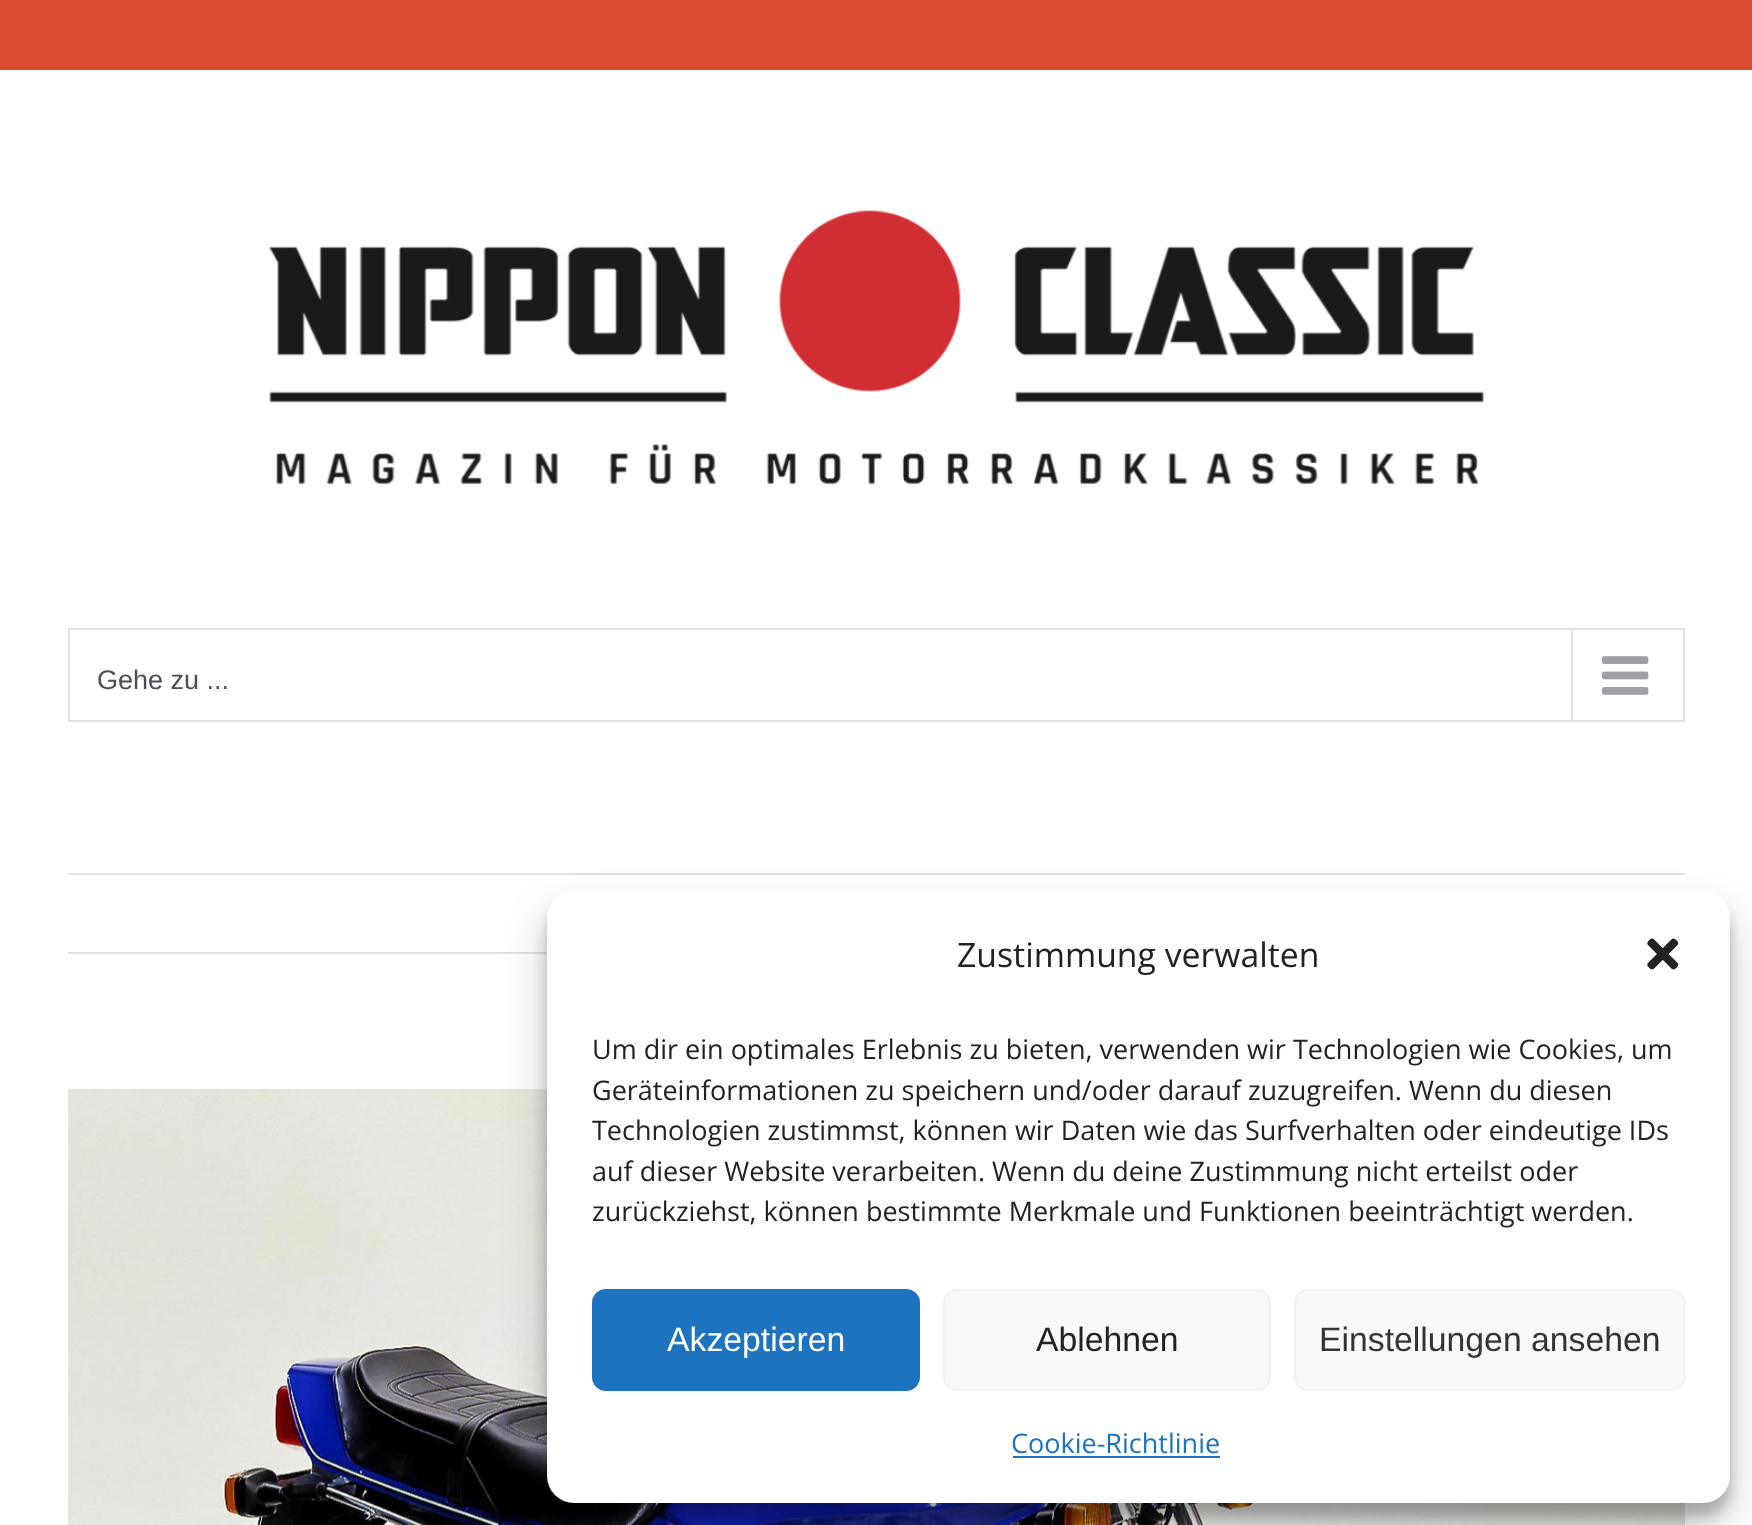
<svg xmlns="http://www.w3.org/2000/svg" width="1752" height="1525">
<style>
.a{font:27px Liberation Sans;fill:#4a4e57}
.b{font:33.75px Open Sans;fill:#222}
.c{font:27px Open Sans;fill:#222}
.d{font:33.75px Liberation Sans;fill:#fff}
.e{font:33.75px Liberation Sans;fill:#222}
.f{font:33.75px Liberation Sans;fill:#333}
.g{font:27px Open Sans;fill:#1e73be}
</style>
<rect width="100%" height="100%" fill="#fff"/>
<path fill="#db4c30" d="M0 0h1752v70H0z"/>
<image href="1.png" x="269" y="210" width="1215" height="275"/>
<path fill="none" stroke="#e2e2e2" stroke-width="2" d="M69 629h1615v92H69z"/>
<path fill="#e2e2e2" d="M1571 630h2v90H1571z"/>
<image href="2.png" x="1602" y="656" width="47" height="39"/>
<path fill="#e2e2e2" d="M68 873h1617v2H68z"/>
<path fill="#e2e2e2" d="M68 952h479v2H68z"/>
<image href="3.png" x="68" y="1089" width="1617" height="436"/>
<rect fill="#0000003b" filter="blur(7px)" x="547" y="905" width="1183" height="612" rx="27"/>
<rect fill="#00000030" filter="blur(22.5px)" x="547" y="914" width="1183" height="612" rx="27"/>
<rect fill="#fff" x="547" y="891" width="1183" height="612" rx="27"/>
<image href="4.png" x="1647" y="938" width="32" height="32"/>
<rect fill="#1e73be" stroke="#1e73be" stroke-width="2" x="593" y="1290" width="326" height="100" rx="13"/>
<rect fill="#f9f9f9" stroke="#f2f2f2" stroke-width="2" x="944" y="1290" width="326" height="100" rx="13"/>
<rect fill="#f9f9f9" stroke="#f2f2f2" stroke-width="2" x="1295" y="1290" width="389" height="100" rx="13"/>
<path fill="#1e73be" d="M1013 1456h207v2H1013z"/>
<text class="a" x="97" y="689">Gehe zu ...</text>
<text class="b" x="957" y="967">Zustimmung verwalten</text>
<text class="c" x="592" y="1059">Um dir ein optimales Erlebnis zu bieten, verwenden wir Technologien wie Cookies, um</text>
<text class="c" x="592" y="1100">Geräteinformationen zu speichern und/oder darauf zuzugreifen. Wenn du diesen</text>
<text class="c" x="592" y="1140">Technologien zustimmst, können wir Daten wie das Surfverhalten oder eindeutige IDs</text>
<text class="c" x="592" y="1181">auf dieser Website verarbeiten. Wenn du deine Zustimmung nicht erteilst oder</text>
<text class="c" x="592" y="1221">zurückziehst, können bestimmte Merkmale und Funktionen beeinträchtigt werden.</text>
<text class="d" x="667" y="1351">Akzeptieren</text>
<text class="e" x="1036" y="1351">Ablehnen</text>
<text class="f" x="1319" y="1351">Einstellungen ansehen</text>
<text class="g" x="1011" y="1453">Cookie-Richtlinie</text>
</svg>
